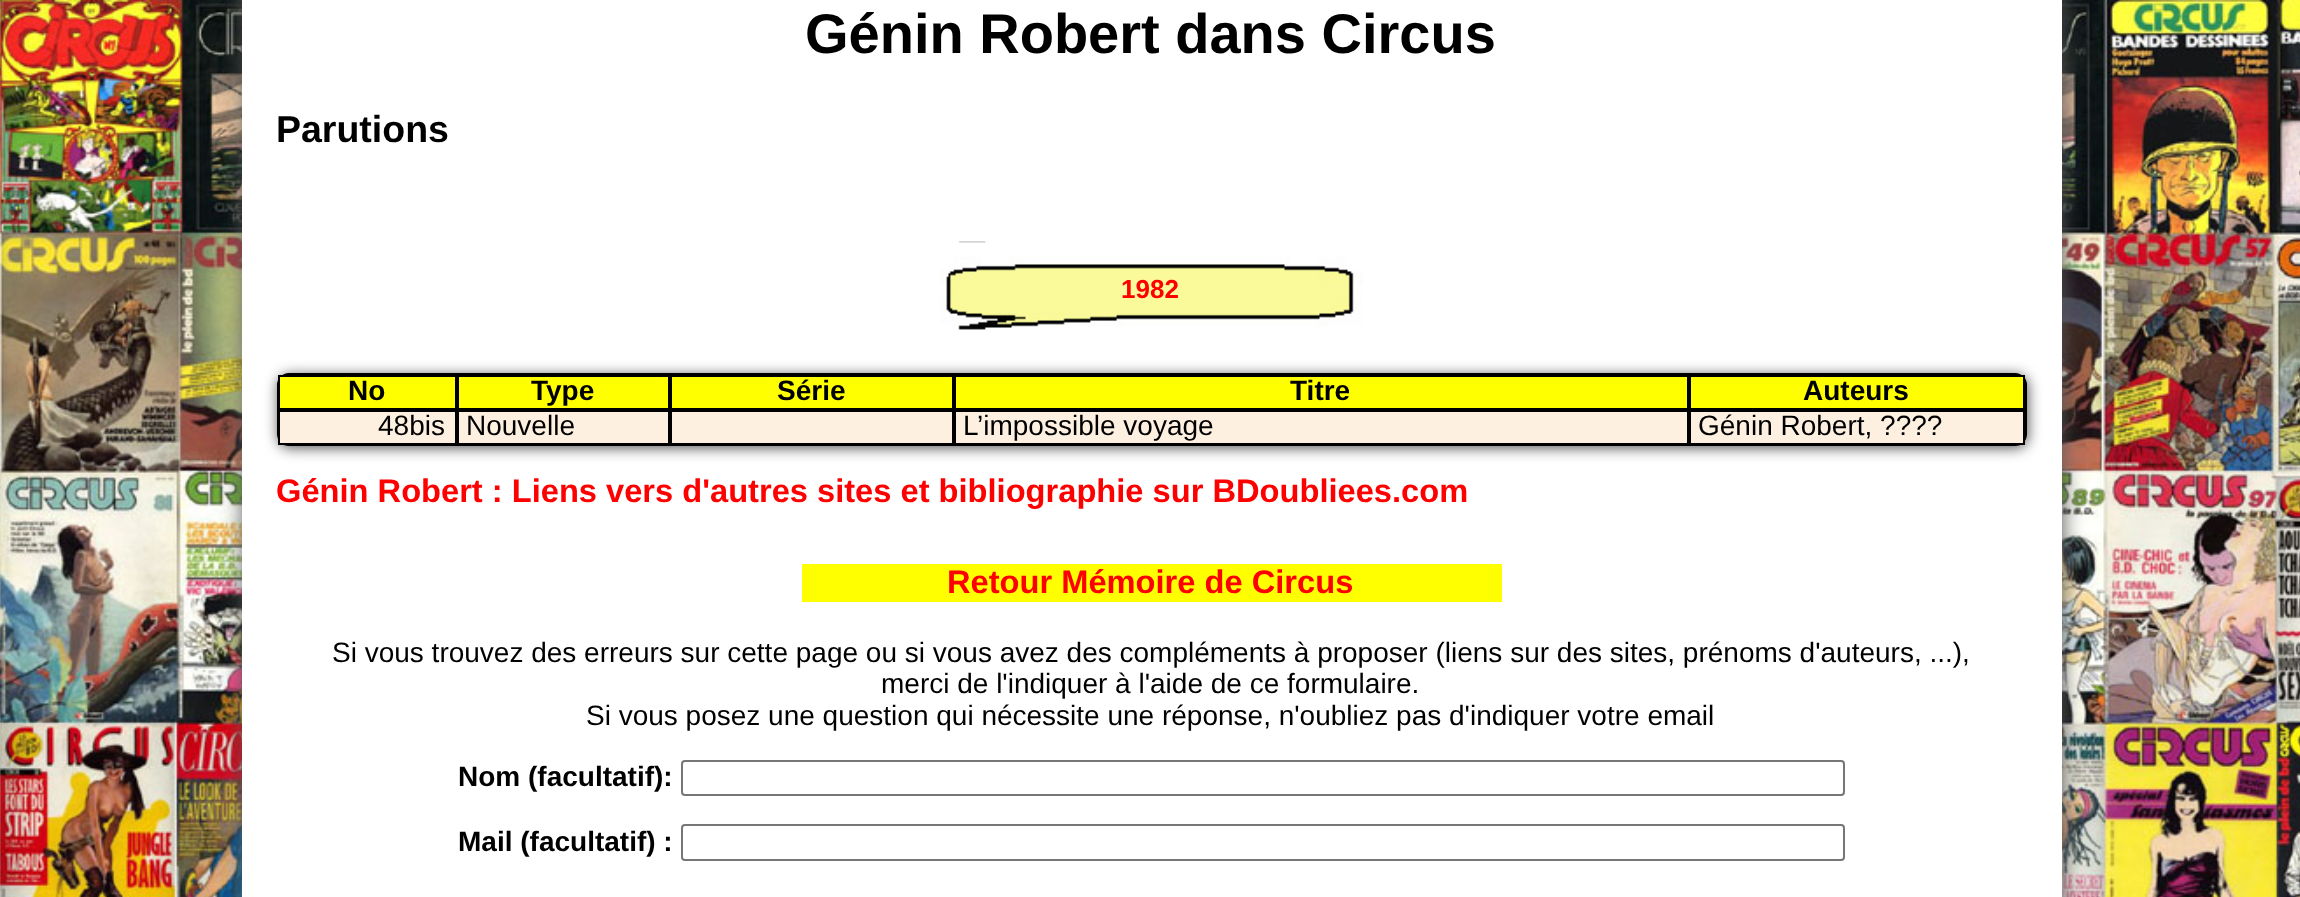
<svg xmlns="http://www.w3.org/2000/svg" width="2300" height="897">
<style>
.a{font:bold 56px Liberation Sans;fill:#000}
.b{font:bold 37.5px Liberation Sans;fill:#000}
.c{font:bold 26px Liberation Sans;fill:#f00}
.d{font:bold 28px Liberation Sans;fill:#000}
.e{font:28px Liberation Sans;fill:#000}
.f{font:bold 32.65px Liberation Sans;fill:#f00}
</style>
<rect width="100%" height="100%" fill="#fff"/>
<image href="1.png" x="0" y="0" width="2300" height="897"/>
<rect fill="#555" filter="blur(10.5px)" x="243" y="-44" width="1820" height="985" rx="12"/>
<path fill="#fff" d="M242 0h1820v897H242z"/>
<image href="2.png" x="940" y="241" width="423" height="89"/>
<rect fill="#555" filter="blur(7px)" x="278" y="375" width="1750" height="73" rx="12"/>
<rect fill="none" stroke="#000" stroke-width="2" x="278" y="374" width="1748" height="71" rx="11"/>
<path fill="#ff0" stroke="#000" stroke-width="2" d="M279 376h177v33H279z"/>
<path fill="#ff0" stroke="#000" stroke-width="2" d="M458 376h211v33H458z"/>
<path fill="#ff0" stroke="#000" stroke-width="2" d="M671 376h282v33H671z"/>
<path fill="#ff0" stroke="#000" stroke-width="2" d="M955 376h733v33H955z"/>
<path fill="#ff0" stroke="#000" stroke-width="2" d="M1690 376h334v33H1690z"/>
<path fill="#fef0e0" d="M280 412h1743v31H280z"/>
<path fill="none" stroke="#000" stroke-width="2" d="M279 411h177v33H279z"/>
<path fill="none" stroke="#000" stroke-width="2" d="M458 411h211v33H458z"/>
<path fill="none" stroke="#000" stroke-width="2" d="M671 411h282v33H671z"/>
<path fill="none" stroke="#000" stroke-width="2" d="M955 411h733v33H955z"/>
<path fill="none" stroke="#000" stroke-width="2" d="M1690 411h334v33H1690z"/>
<path fill="#ff0" d="M802 564h700v38H802z"/>
<rect fill="none" stroke="#767676" stroke-width="2" x="682" y="761" width="1162" height="34" rx="3"/>
<rect fill="none" stroke="#767676" stroke-width="2" x="682" y="825" width="1162" height="35" rx="3"/>
<text class="a" x="805" y="53">Génin Robert dans Circus</text>
<text class="b" x="276" y="142">Parutions</text>
<text class="c" x="1121" y="298">1982</text>
<text class="d" x="348" y="400">No</text>
<text class="d" x="531" y="400">Type</text>
<text class="d" x="777" y="400">Série</text>
<text class="d" x="1290" y="400">Titre</text>
<text class="d" x="1803" y="400">Auteurs</text>
<text class="e" x="378" y="435">48bis</text>
<text class="e" x="466" y="435">Nouvelle</text>
<text class="e" x="963" y="435">L’impossible voyage</text>
<text class="e" x="1698" y="435">Génin Robert, ????</text>
<text class="f" x="276" y="502">Génin Robert : Liens vers d'autres sites et bibliographie sur BDoubliees.com</text>
<text class="f" x="947" y="593">Retour Mémoire de Circus</text>
<text class="e" x="332" y="662">Si vous trouvez des erreurs sur cette page ou si vous avez des compléments à proposer (liens sur des sites, prénoms d'auteurs, ...),</text>
<text class="e" x="881" y="693">merci de l'indiquer à l'aide de ce formulaire.</text>
<text class="e" x="586" y="725">Si vous posez une question qui nécessite une réponse, n'oubliez pas d'indiquer votre email</text>
<text class="d" x="458" y="786">Nom (facultatif):</text>
<text class="d" x="458" y="851">Mail (facultatif) :</text>
</svg>
